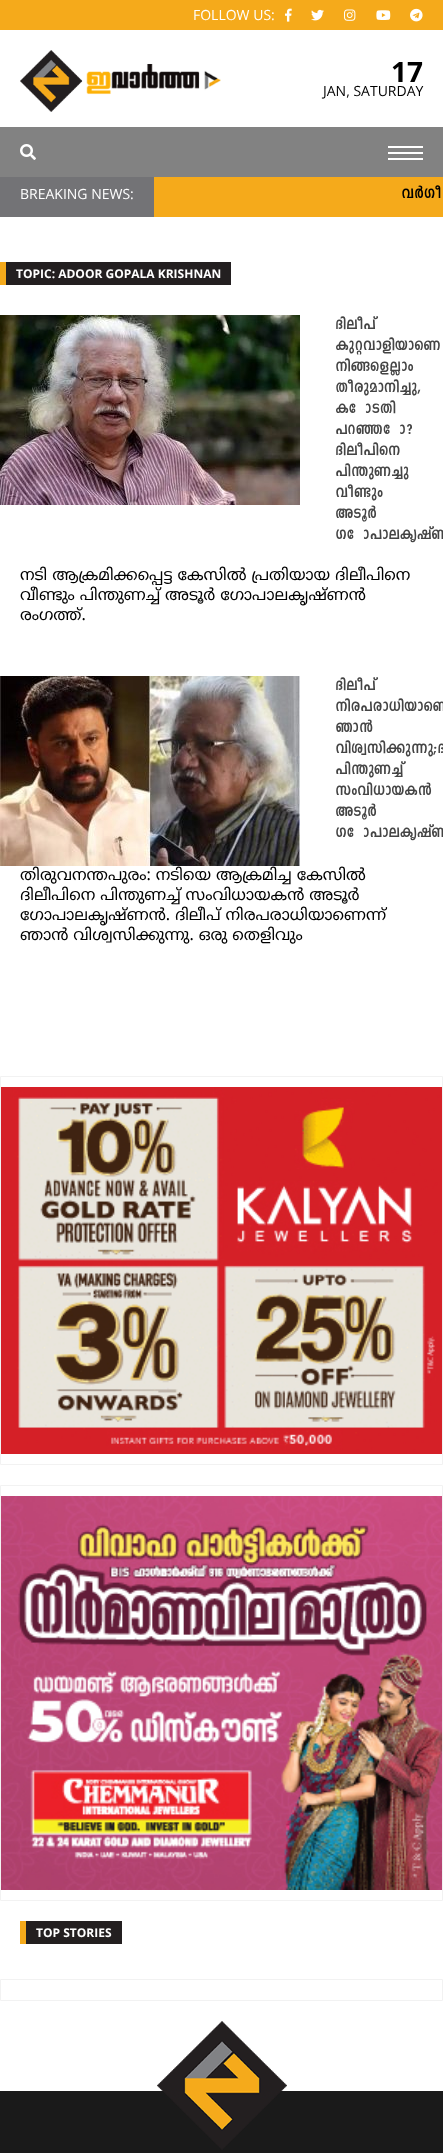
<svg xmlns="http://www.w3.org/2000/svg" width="443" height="2153">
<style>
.a{font:14px Open Sans;fill:#fff}
.b{font:bold 28px Open Sans;fill:#000}
.c{font:14px Open Sans;fill:#000}
.d{font:bold 20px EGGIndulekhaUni;fill:#000}
.e{font:bold 12px Open Sans;fill:#fff}
.f{font:bold 20px EGGIndulekhaUni;fill:#444}
.g{font:16px Noto Sans Malayalam;fill:#000}
</style>
<rect width="100%" height="100%" fill="#fff"/>
<path fill="#f5aa1b" d="M0 0h443v30H0z"/>
<image href="1.png" x="285" y="8" width="7" height="14"/>
<image href="2.png" x="311" y="9" width="13" height="12"/>
<image href="3.png" x="344" y="9" width="12" height="12"/>
<image href="4.png" x="376" y="10" width="15" height="10"/>
<image href="5.png" x="410" y="8" width="13" height="14"/>
<image href="6.png" x="20" y="50" width="201" height="62"/>
<path fill="#828282" d="M0 127h443v50H0z"/>
<image href="7.png" x="20" y="144" width="16" height="16"/>
<path fill="#fff" d="M388 146h35v2H388z"/>
<path fill="#fff" d="M388 152h35v2H388z"/>
<path fill="#fff" d="M388 158h35v2H388z"/>
<path fill="#f5aa1b" d="M154 177h289v40H154z"/>
<path fill="#737376" d="M0 177h154v40H0z"/>
<path fill="#231f20" d="M6 262h225v23H6z"/>
<path fill="#f5aa1b" d="M0 262h6v23H0z"/>
<image href="8.png" x="0" y="315" width="300" height="190"/>
<image href="9.png" x="0" y="676" width="300" height="190"/>
<path fill="none" stroke="#f2f2f2" d="M0.5 1076.5h442v388H0.5z"/>
<image href="10.png" x="1" y="1087" width="441" height="367"/>
<path fill="none" stroke="#f2f2f2" d="M0.5 1485.5h442v415H0.5z"/>
<image href="11.png" x="1" y="1496" width="441" height="394"/>
<path fill="#231f20" d="M26 1921h96v23H26z"/>
<path fill="#f5aa1b" d="M20 1921h6v23H20z"/>
<path fill="none" stroke="#f2f2f2" d="M0.5 1979.5h442v21H0.5z"/>
<path fill="#1a1a1a" d="M0 2091h443v62H0z"/>
<image href="12.png" x="157" y="2021" width="130" height="129"/>
<text class="a" x="193" y="20">FOLLOW US:</text>
<text class="b" x="391" y="82">17</text>
<text class="c" x="323" y="96">JAN, SATURDAY</text>
<text class="a" x="20" y="199">BREAKING NEWS:</text>
<text class="d" x="401" y="198">വര്‍ഗീ</text>
<text class="e" x="16" y="278">TOPIC: ADOOR GOPALA KRISHNAN</text>
<text class="f" x="335" y="329">ദിലീപ്</text>
<text class="f" x="335" y="350">കുറ്റവാളിയാണെ</text>
<text class="f" x="335" y="371">നിങ്ങളെല്ലാം</text>
<text class="f" x="335" y="392">തീരുമാനിച്ചു,</text>
<text class="f" x="335" y="413">കോടതി</text>
<text class="f" x="335" y="434">പറഞ്ഞോ?</text>
<text class="f" x="335" y="455">ദിലീപിനെ</text>
<text class="f" x="335" y="476">പിന്തുണച്ചു</text>
<text class="f" x="335" y="497">വീണ്ടും</text>
<text class="f" x="335" y="518">അടൂർ</text>
<text class="f" x="335" y="539">ഗോപാലകൃഷ്ണ</text>
<text class="g" x="20" y="580">നടി ആക്രമിക്കപ്പെട്ട കേസിൽ പ്രതിയായ ദിലീപിനെ</text>
<text class="g" x="20" y="600">വീണ്ടും പിന്തുണച്ച് അടൂർ ഗോപാലകൃഷ്ണൻ</text>
<text class="g" x="20" y="620">രംഗത്ത്.</text>
<text class="f" x="335" y="690">ദിലീപ്</text>
<text class="f" x="335" y="711">നിരപരാധിയാണെ</text>
<text class="f" x="335" y="732">ഞാന്‍</text>
<text class="f" x="335" y="753">വിശ്വസിക്കുന്നു;ദ</text>
<text class="f" x="335" y="774">പിന്തുണച്ച്‌</text>
<text class="f" x="335" y="795">സംവിധായകന്‍</text>
<text class="f" x="335" y="816">അടൂര്‍</text>
<text class="f" x="335" y="837">ഗോപാലകൃഷ്ണ</text>
<text class="g" x="20" y="880">തിരുവനന്തപുരം: നടിയെ ആക്രമിച്ച കേസില്‍</text>
<text class="g" x="20" y="900">ദിലീപിനെ പിന്തുണച്ച്‌ സംവിധായകന്‍ അടൂര്‍</text>
<text class="g" x="20" y="920">ഗോപാലകൃഷ്ണന്‍. ദിലീപ് നിരപരാധിയാണെന്ന്</text>
<text class="g" x="20" y="940">ഞാന്‍ വിശ്വസിക്കുന്നു. ഒരു തെളിവും</text>
<text class="e" x="36" y="1937">TOP STORIES</text>
</svg>
